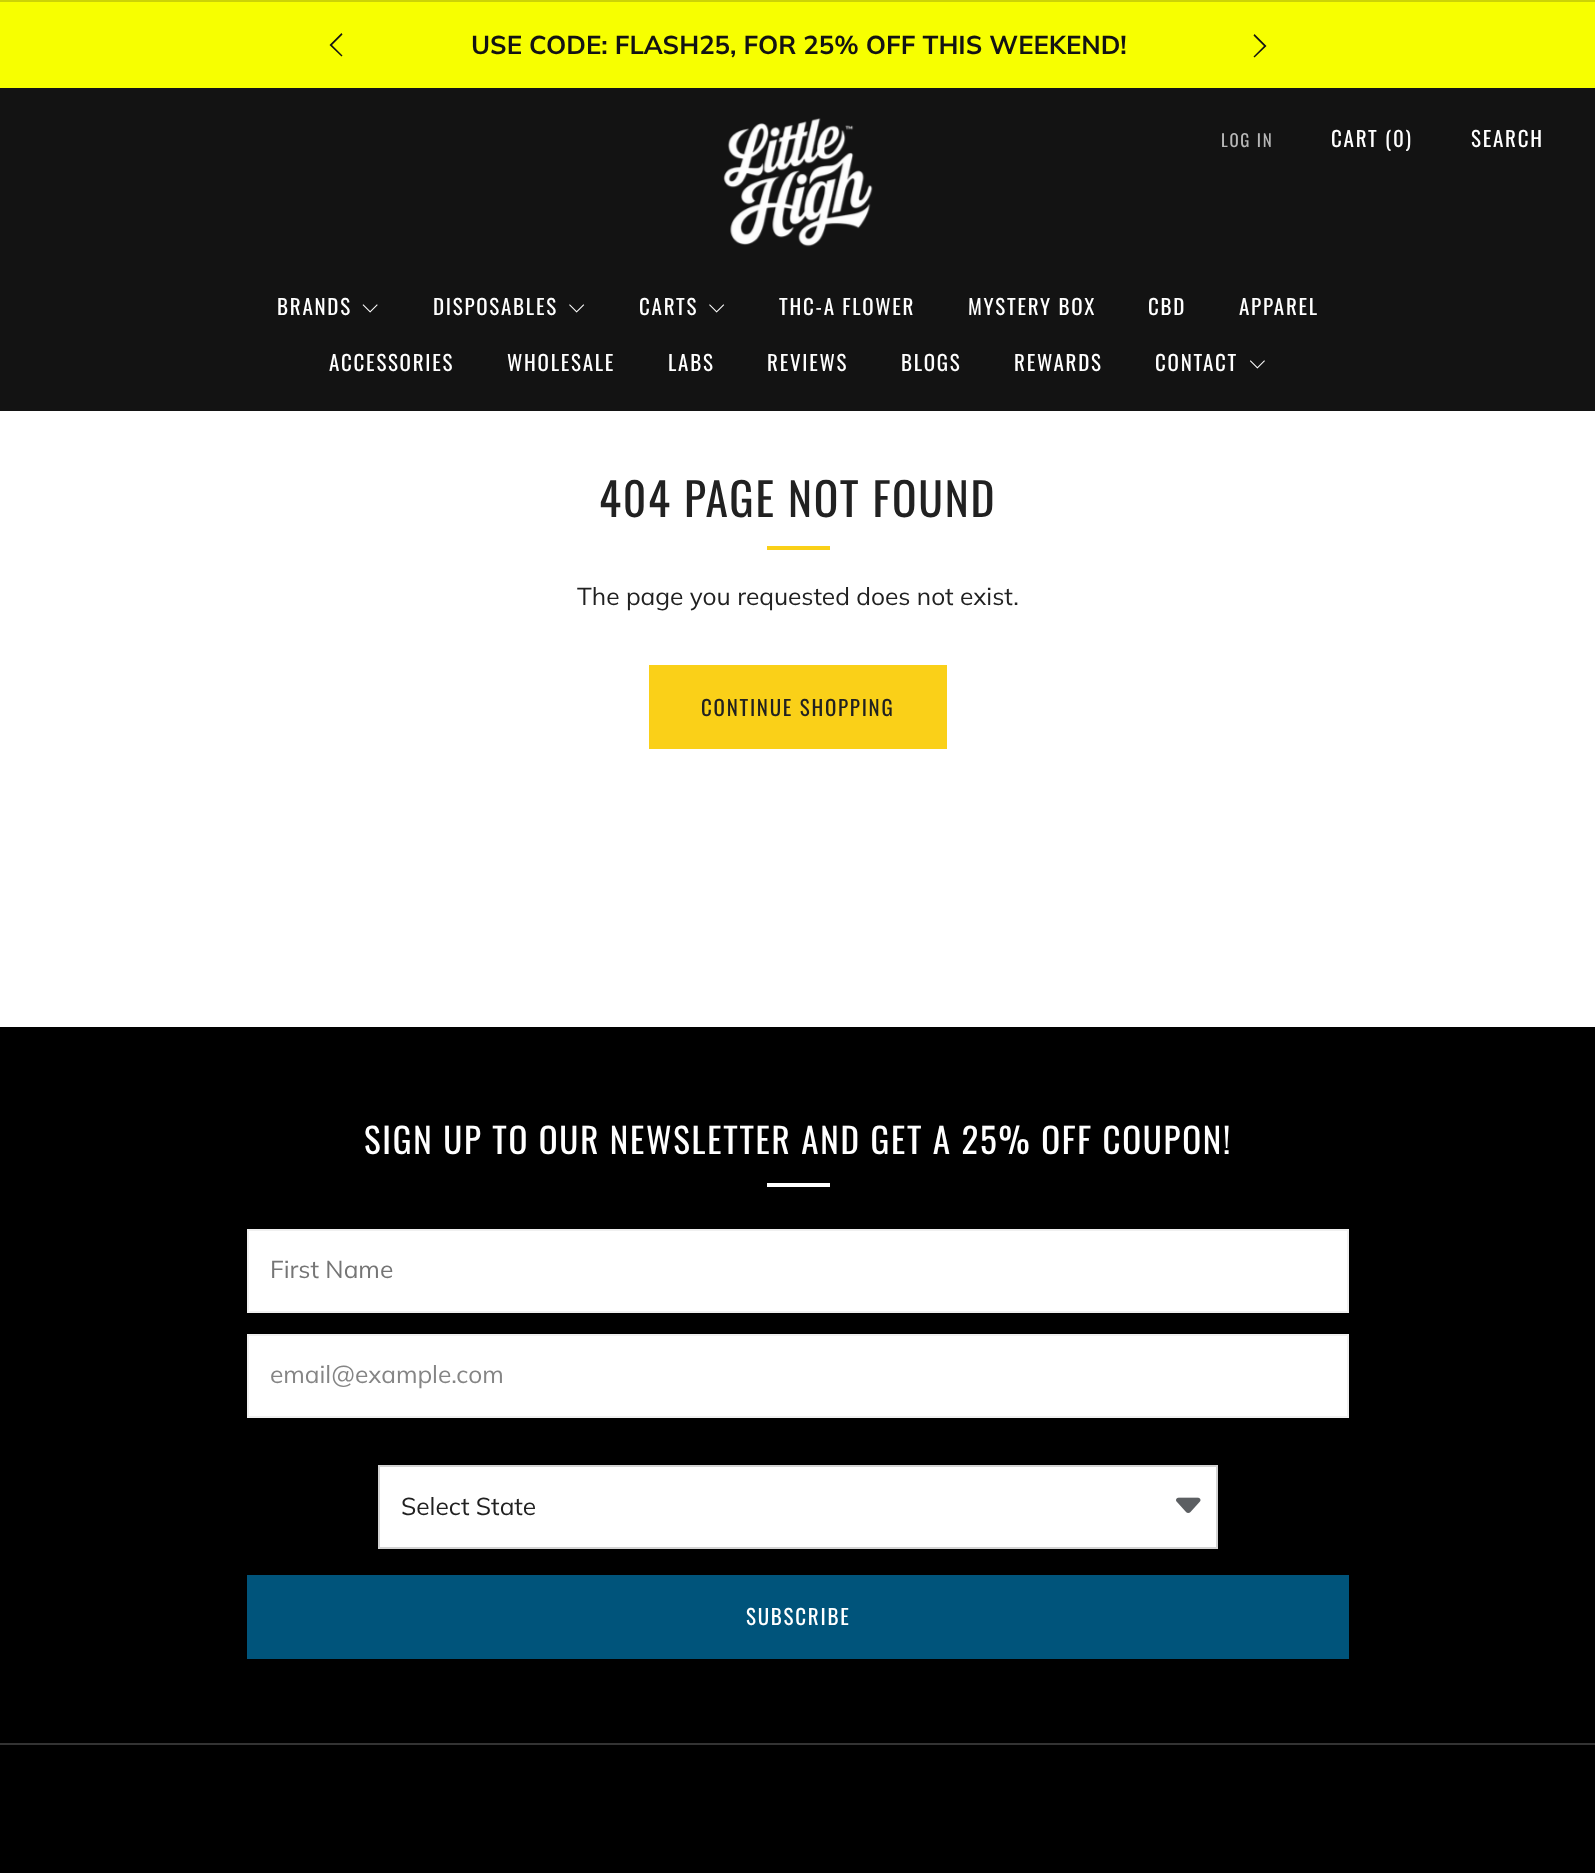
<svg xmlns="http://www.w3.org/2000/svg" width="1595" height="1873">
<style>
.a{font:bold 25.75px Muli;fill:#131313}
.b{font:17px Oswald;letter-spacing:1.75px;fill:#b8b8b8}
.c{font:21px Oswald;letter-spacing:1.75px;fill:#fff}
.d{font:45.5px Oswald;letter-spacing:1.75px;fill:#212121}
.e{font:24.5px Muli;fill:#212121}
.f{font:21px Oswald;letter-spacing:1.75px;fill:#212121}
.g{font:35px Oswald;letter-spacing:1.75px;fill:#fff}
.h{font:24.5px Muli;fill:#757575}
.i{font:24.5px Muli;fill:#858585}
</style>
<rect width="100%" height="100%" fill="#fff"/>
<path fill="#f7ff00" d="M0 2h1595v86H0z"/>
<path fill="#ccd307" d="M0 0h1595v2H0z"/>
<path fill="#131313" d="M342.5 55.5l-1 1l-12-11.5l12-12l1 1.5l-10.5 10.5z"/>
<path fill="#131313" d="M1253.5 56.5l1 1l12-11.5l-12-12l-1 1.5l10.5 10.5z"/>
<path fill="#131313" d="M0 88h1595v323H0z"/>
<image href="1.png" x="723" y="118" width="150" height="129"/>
<image href="2.png" x="362" y="304" width="16" height="9"/>
<image href="3.png" x="569" y="304" width="16" height="9"/>
<image href="3.png" x="709" y="304" width="16" height="9"/>
<image href="4.png" x="1250" y="360" width="15" height="9"/>
<path fill="#fad018" d="M767 546h63v4H767z"/>
<path fill="#fad018" d="M649 665h298v84H649z"/>
<path fill="#000" d="M0 1027h1595v716H0z"/>
<path fill="#fff" d="M767 1183h63v4H767z"/>
<path fill="#fff" stroke="#f0f0f0" stroke-width="2" d="M248 1230h1100v82H248z"/>
<path fill="#fff" stroke="#f0f0f0" stroke-width="2" d="M248 1335h1100v82H248z"/>
<path fill="#fff" d="M380 1467h836v80H380z"/>
<image href="5.png" x="1176" y="1497" width="25" height="16"/>
<path fill="none" stroke="#d3d3d3" stroke-width="2" d="M379 1466h838v82H379z"/>
<path fill="#00547b" d="M247 1575h1102v84H247z"/>
<path fill="#000" d="M0 1745h1595v128H0z"/>
<path fill="#333" d="M0 1743h1595v2H0z"/>
<text class="a" x="471" y="54">USE CODE: FLASH25, FOR 25% OFF THIS WEEKEND!</text>
<text class="b" x="1221" y="147">LOG IN</text>
<text class="c" x="1331" y="147">CART (0)</text>
<text class="c" x="1471" y="147">SEARCH</text>
<text class="c" x="277" y="315">BRANDS</text>
<text class="c" x="433" y="315">DISPOSABLES</text>
<text class="c" x="639" y="315">CARTS</text>
<text class="c" x="779" y="315">THC-A FLOWER</text>
<text class="c" x="968" y="315">MYSTERY BOX</text>
<text class="c" x="1148" y="315">CBD</text>
<text class="c" x="1239" y="315">APPAREL</text>
<text class="c" x="329" y="371">ACCESSORIES</text>
<text class="c" x="507" y="371">WHOLESALE</text>
<text class="c" x="668" y="371">LABS</text>
<text class="c" x="767" y="371">REVIEWS</text>
<text class="c" x="901" y="371">BLOGS</text>
<text class="c" x="1014" y="371">REWARDS</text>
<text class="c" x="1155" y="371">CONTACT</text>
<text class="d" x="599" y="517">404 PAGE NOT FOUND</text>
<text class="e" x="577" y="605">The page you requested does not exist.</text>
<text class="f" x="701" y="716">CONTINUE SHOPPING</text>
<text class="g" x="364" y="1154">SIGN UP TO OUR NEWSLETTER AND GET A 25% OFF COUPON!</text>
<text class="h" x="270" y="1278">First Name</text>
<text class="i" x="270" y="1383">email@example.com</text>
<text class="e" x="401" y="1515">Select State</text>
<text class="c" x="746" y="1625">SUBSCRIBE</text>
</svg>
